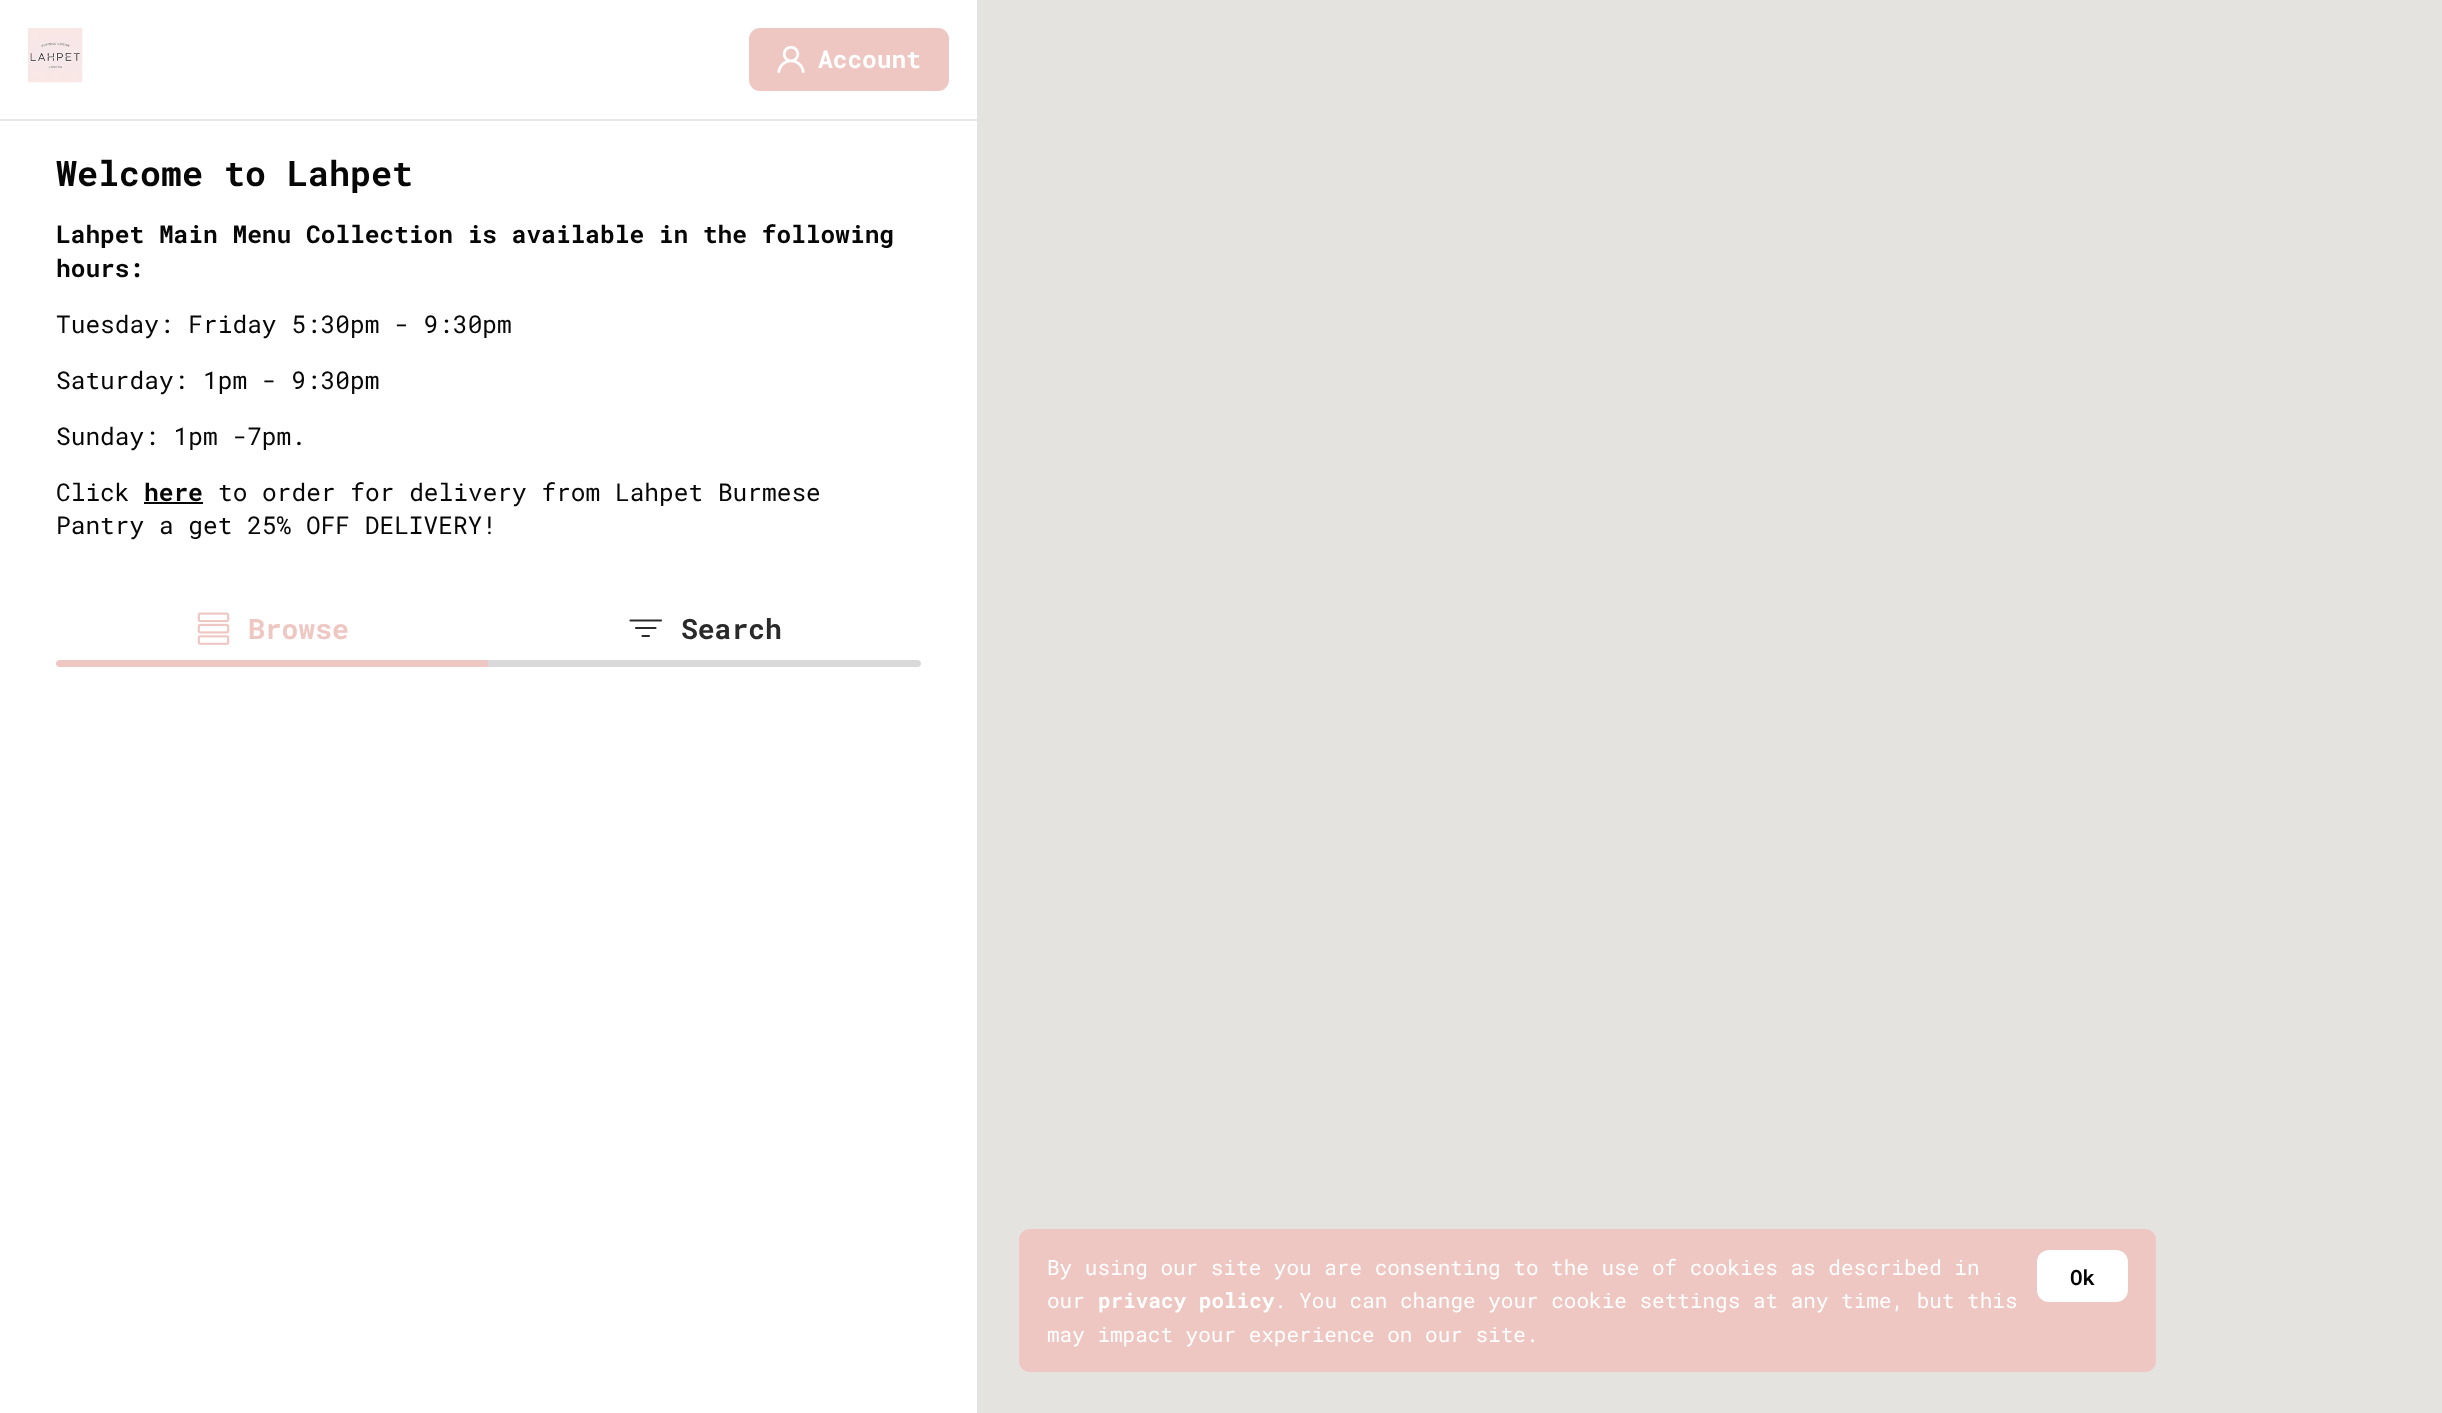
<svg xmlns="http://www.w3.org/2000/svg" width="2442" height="1413">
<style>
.a{font:bold 24.5px Roboto Mono;fill:#fff}
.b{font:bold 35px Roboto Mono;fill:#070707}
.c{font:bold 24.5px Roboto Mono;fill:#070707}
.d{font:24.5px Roboto Mono;fill:#070707}
.e{font:bold 28px Roboto Mono;fill:#eec7c2}
.f{font:bold 28px Roboto Mono;fill:#2a2a2a}
.g{font:21px Roboto Mono;fill:#fff}
.h{font:bold 21px Roboto Mono;fill:#fff}
.i{font:600 21px Roboto Mono;fill:#000}
</style>
<rect width="100%" height="100%" fill="#fff"/>
<path fill="#e9e9e9" d="M0 119h977v2H0z"/>
<image href="1.png" x="28" y="28" width="55" height="55"/>
<rect fill="#eec7c2" x="749" y="28" width="200" height="63" rx="11"/>
<image href="2.png" x="777" y="46" width="28" height="27"/>
<path fill="#070707" d="M144 502h59v2H144z"/>
<image href="3.png" x="197" y="612" width="33" height="33"/>
<path fill="none" stroke="#2a2a2a" stroke-width="2.2" stroke-linecap="round" stroke-linejoin="round" d="M630.5 620.5h30.5m-25 7.5h19.5m-13 8h6.5"/>
<path fill="#d9d9d9" d="M488 660h429.5c2 0 3.5 1.5 3.5 3.5c0 2-1.5 3.5-3.5 3.5h-429.5z"/>
<path fill="#eec7c2" d="M59.5 660h428.5v7h-428.5c-2 0-3.5-1.5-3.5-3.5c0-2 1.5-3.5 3.5-3.5z"/>
<path fill="#e5e3df" d="M977 0h1465v1413H977z"/>
<rect fill="#eec7c2" x="1019" y="1229" width="1137" height="143" rx="11"/>
<rect fill="#fff" x="2037" y="1250" width="91" height="52" rx="12"/>
<text class="a" x="818" y="68">Account</text>
<text class="b" x="56" y="186">Welcome to Lahpet</text>
<text class="c" x="56" y="243">Lahpet Main Menu Collection is available in the following</text>
<text class="c" x="56" y="277">hours:</text>
<text class="d" x="56" y="333">Tuesday: Friday 5:30pm - 9:30pm</text>
<text class="d" x="56" y="389">Saturday: 1pm - 9:30pm</text>
<text class="d" x="56" y="445">Sunday: 1pm -7pm.</text>
<text class="d" x="56" y="501">Click</text>
<text class="c" x="144" y="501">here</text>
<text class="d" x="218" y="501">to order for delivery from Lahpet Burmese</text>
<text class="d" x="56" y="534">Pantry a get 25% OFF DELIVERY!</text>
<text class="e" x="248" y="639">Browse</text>
<text class="f" x="681" y="639">Search</text>
<text class="g" x="1047" y="1275">By using our site you are consenting to the use of cookies as described in</text>
<text class="g" x="1047" y="1308">our</text>
<text class="h" x="1098" y="1308">privacy policy</text>
<text class="g" x="1274" y="1308">. You can change your cookie settings at any time, but this</text>
<text class="g" x="1047" y="1342">may impact your experience on our site.</text>
<text class="i" x="2070" y="1285">Ok</text>
</svg>
